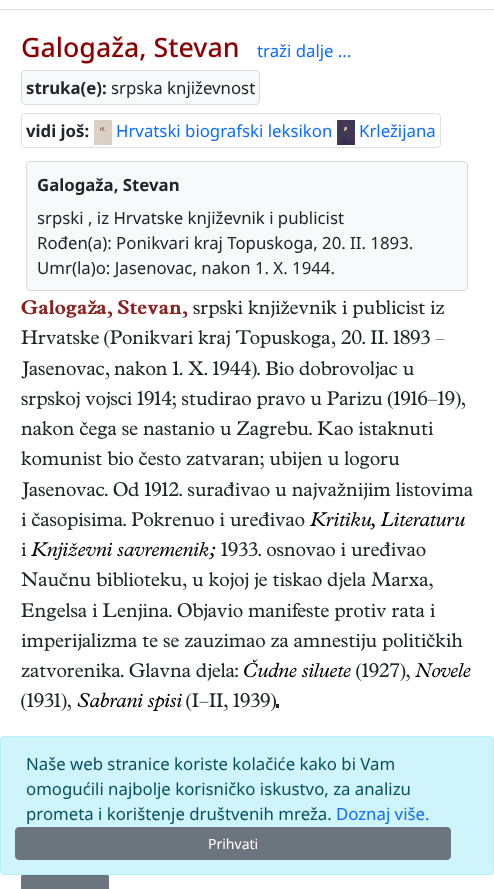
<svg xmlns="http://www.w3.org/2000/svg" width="494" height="889">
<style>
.a{font:500 26.75px Noto Sans;fill:#8b0000}
.b{font:16.8px Noto Sans;fill:#0d6efd}
.c{font:bold 16.8px Noto Sans;fill:#212529}
.d{font:16.8px Noto Sans;fill:#212529}
.e{font:16.8px Noto Sans;fill:#055160}
.f{font:14px Noto Sans;fill:#fff}
</style>
<rect width="100%" height="100%" fill="#fff"/>
<path fill="#dee2e6" d="M0 9h494v1H0z"/>
<rect fill="#f8f9fa" stroke="#d9dadb" x="21.5" y="70.5" width="238" height="34" rx="3.5"/>
<rect fill="none" stroke="#dfdfdf" x="21.5" y="113.5" width="419" height="34" rx="3.5"/>
<image href="1.png" x="94" y="120" width="18" height="25"/>
<image href="2.png" x="337" y="120" width="18" height="25"/>
<rect fill="#f8f9fa" stroke="#d9dadb" x="26.5" y="161.5" width="441" height="129" rx="3.5"/>
<image href="3.png" x="21" y="300" width="167" height="18"/>
<image href="4.png" x="193" y="300" width="50" height="18"/>
<image href="5.png" x="248" y="300" width="177" height="18"/>
<image href="6.png" x="430" y="300" width="14" height="14"/>
<image href="7.png" x="21" y="330" width="78" height="15"/>
<image href="8.png" x="104" y="330" width="6" height="19"/>
<image href="9.png" x="110" y="330" width="220" height="18"/>
<image href="10.png" x="341" y="330" width="89" height="15"/>
<path fill="#212529" d="M435.5 339.5v-.5h9v.5z"/>
<image href="11.png" x="331" y="341" width="5" height="7"/>
<image href="12.png" x="21" y="361" width="84" height="18"/>
<image href="11.png" x="105" y="372" width="5" height="7"/>
<image href="13.png" x="114" y="361" width="137" height="15"/>
<image href="14.png" x="251" y="361" width="163" height="19"/>
<image href="15.png" x="21" y="391" width="444" height="19"/>
<image href="16.png" x="21" y="421" width="412" height="18"/>
<image href="17.png" x="21" y="451" width="379" height="18"/>
<image href="18.png" x="21" y="482" width="452" height="18"/>
<image href="19.png" x="21" y="512" width="284" height="18"/>
<image href="20.png" x="310" y="512" width="155" height="18"/>
<image href="21.png" x="21" y="542" width="6" height="14"/>
<image href="22.png" x="31" y="542" width="185" height="18"/>
<image href="23.png" x="221" y="542" width="205" height="15"/>
<image href="24.png" x="21" y="572" width="412" height="18"/>
<image href="25.png" x="21" y="603" width="414" height="18"/>
<image href="26.png" x="21" y="633" width="442" height="18"/>
<image href="27.png" x="21" y="663" width="217" height="18"/>
<image href="28.png" x="244" y="659" width="107" height="19"/>
<image href="29.png" x="356" y="663" width="54" height="19"/>
<image href="30.png" x="415" y="663" width="56" height="15"/>
<image href="31.png" x="21" y="693" width="50" height="19"/>
<image href="32.png" x="77" y="692" width="105" height="19"/>
<image href="33.png" x="186" y="693" width="90" height="19"/>
<path fill="#212529" d="M276 704h3v4H276z"/>
<rect fill="#6c757d" stroke="#6c757d" x="21.5" y="873.5" width="87" height="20" rx="3.5"/>
<rect fill="#cff4fc" stroke="#b6effb" x="0.5" y="736.5" width="493" height="138" rx="3.5"/>
<rect fill="#6c757d" stroke="#6c757d" x="15.5" y="827.5" width="435" height="32" rx="3.5"/>
<text class="a" x="21" y="57">Galogaža, Stevan</text>
<text class="b" x="257" y="57">traži dalje ...</text>
<text class="c" x="26" y="94">struka(e):</text>
<text class="d" x="111" y="94">srpska književnost</text>
<text class="c" x="26" y="137">vidi još:</text>
<text class="b" x="116" y="137">Hrvatski biografski leksikon</text>
<text class="b" x="359" y="137">Krležijana</text>
<text class="c" x="37" y="191">Galogaža, Stevan</text>
<text class="d" x="37" y="224">srpski , iz Hrvatske književnik i publicist</text>
<text class="d" x="37" y="249">Rođen(a): Ponikvari kraj Topuskoga, 20. II. 1893.</text>
<text class="d" x="37" y="274">Umr(la)o: Jasenovac, nakon 1. X. 1944.</text>
<text class="e" x="26" y="770">Naše web stranice koriste kolačiće kako bi Vam</text>
<text class="e" x="26" y="795">omogućili najbolje korisničko iskustvo, za analizu</text>
<text class="e" x="26" y="820">prometa i korištenje društvenih mreža.</text>
<text class="b" x="336" y="820">Doznaj više.</text>
<text class="f" x="208" y="849">Prihvati</text>
</svg>
